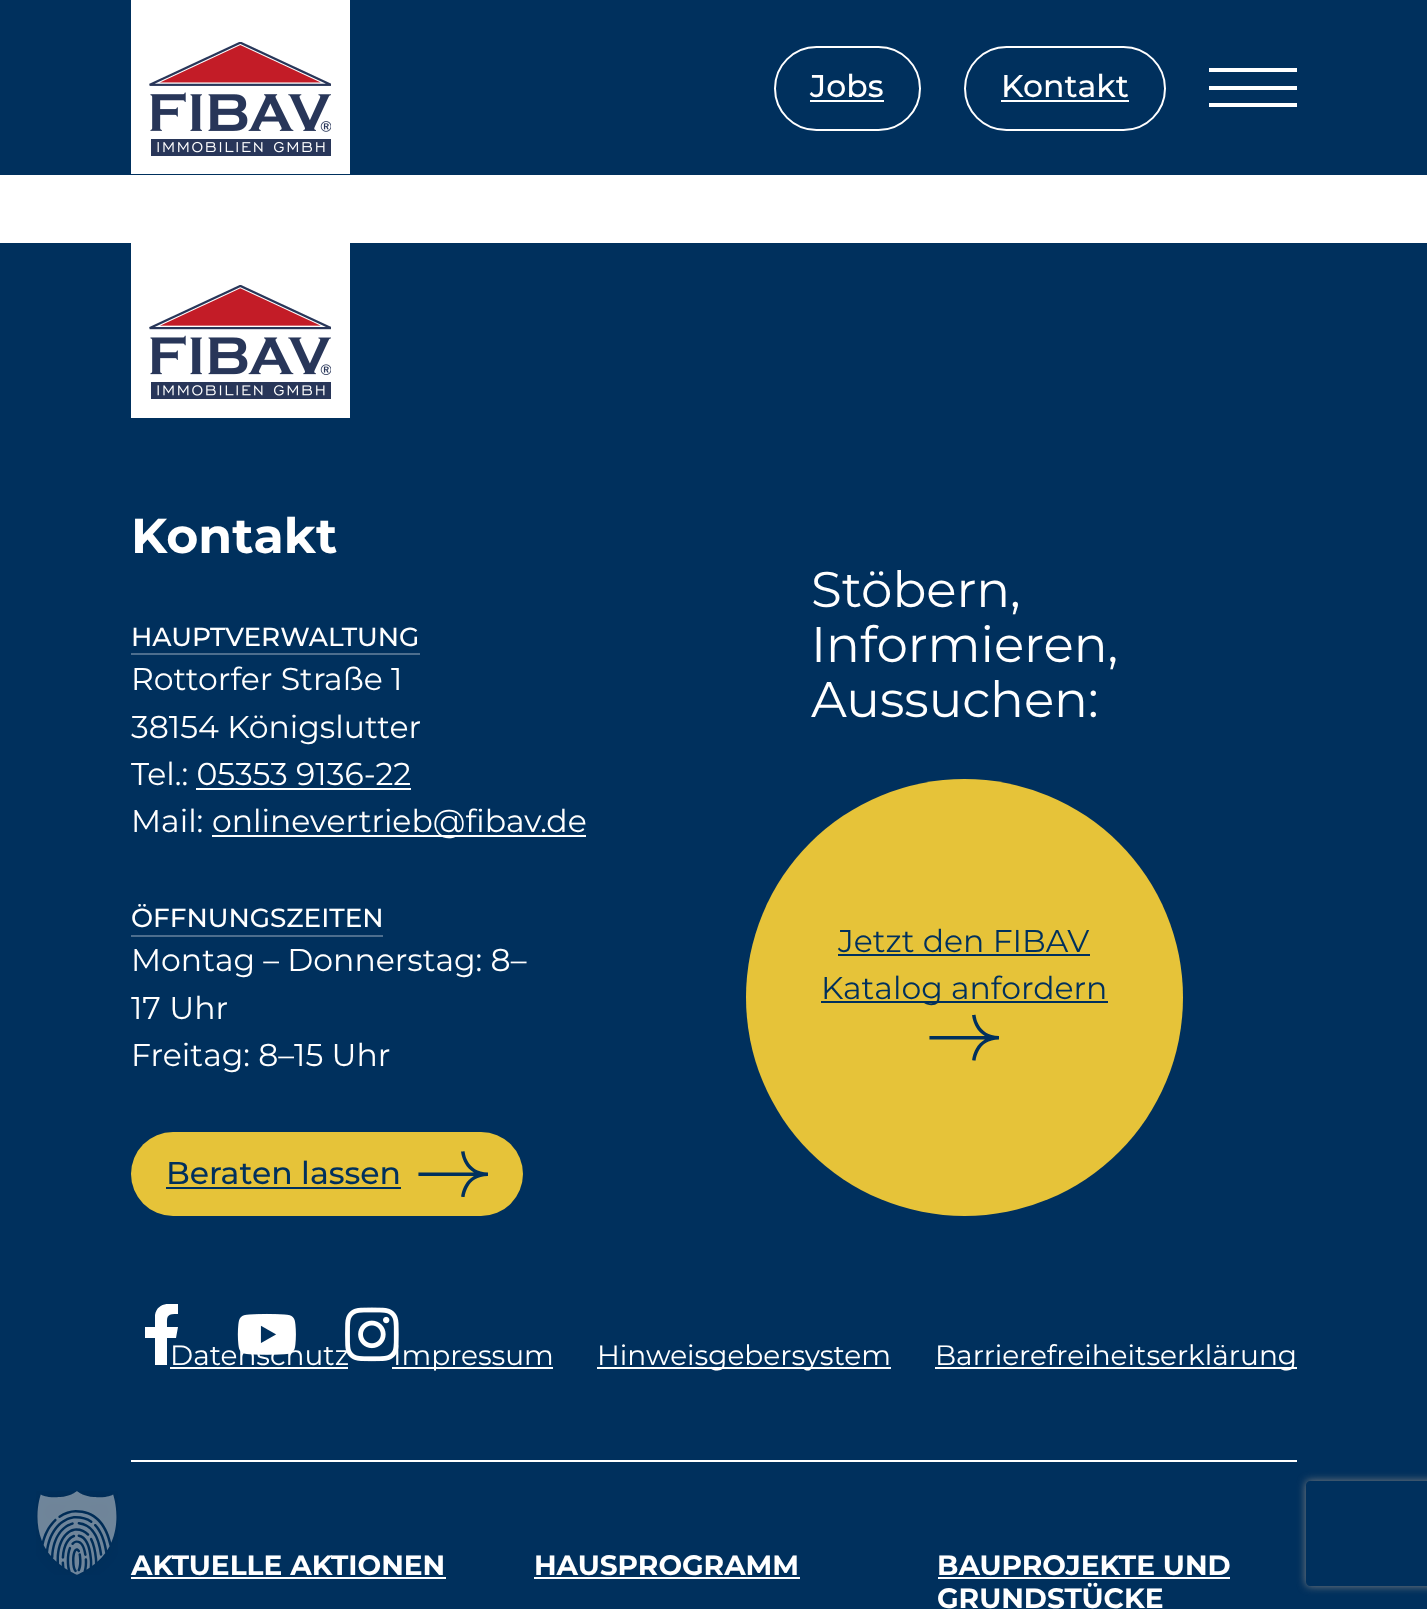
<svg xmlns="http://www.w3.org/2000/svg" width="1427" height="1609">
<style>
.a{font:100 31.5px 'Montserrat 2';fill:#fff}
.b{font:100 49px Montserrat;fill:#fff}
.c{font:100 26.25px 'Montserrat 2';fill:#fff}
.d{font:100 31.5px 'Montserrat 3';fill:#fff}
.e{font:100 31.5px 'Montserrat 2';fill:#00305d}
.f{font:100 50px 'Montserrat 3';fill:#fff}
.g{font:100 31.5px 'Montserrat 3';fill:#00305d}
.h{font:100 28px 'Montserrat 3';fill:#fff}
.i{font:100 28px Montserrat;fill:#fff}
</style>
<defs>
<clipPath id="clip1"><path d="M131 1304h62v61H131z"/></clipPath>
<clipPath id="clip2"><path d="M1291 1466h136v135h-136zm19 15h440c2 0 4 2 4 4v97c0 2-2 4-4 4h-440c-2 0-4-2-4-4v-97c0-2 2-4 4-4z" clip-rule="evenodd"/></clipPath>
</defs>
<rect width="100%" height="100%" fill="#fff"/>
<path fill="#00305d" d="M0 0h1427v175H0z"/>
<image href="1.png" x="131" y="0" width="219" height="174"/>
<rect fill="none" stroke="#fff" stroke-width="2" x="775" y="47" width="145" height="83" rx="41.5"/>
<path fill="#fff" d="M810 100h74v2H810z"/>
<rect fill="none" stroke="#fff" stroke-width="2" x="965" y="47" width="200" height="83" rx="41.5"/>
<path fill="#fff" d="M1001 100h128v2H1001z"/>
<path fill="#fff" d="M1209 86h88v4H1209z"/>
<path fill="#fff" d="M1209 68h88v4H1209z"/>
<path fill="#fff" d="M1209 103h88v4H1209z"/>
<path fill="#00305d" d="M0 243h1427v1366H0z"/>
<image href="2.png" x="36" y="1491" width="82" height="84"/>
<image href="3.png" x="131" y="243" width="219" height="175"/>
<path fill="#4d6e8e" d="M131 653h289v2H131z"/>
<path fill="#fff" d="M196 788h215v2H196z"/>
<path fill="#fff" d="M212 835h374v2H212z"/>
<path fill="#4d6e8e" d="M131 935h252v2H131z"/>
<rect fill="#e6c339" x="131" y="1132" width="392" height="84" rx="42"/>
<path fill="#00305d" d="M166 1187h235v2H166z"/>
<image href="4.png" x="418" y="1151" width="70" height="46"/>
<circle fill="#e6c339" cx="964.5" cy="997.5" r="218.5"/>
<path fill="#00305d" d="M838 954h252v2H838z"/>
<path fill="#00305d" d="M821 1001h287v2H821z"/>
<image href="5.png" x="929" y="1014" width="70" height="47"/>
<g clip-path="url(#clip1)">
<path fill="#fff" d="M176 1338l2-11h-11c0-11-1-13 11-13v-10c-9-1-21-1-23 11v12h-10v11h10v27h12v-27z"/>
</g>
<path fill="#fff" d="M170 1367h178v2H170z"/>
<path fill="#fff" d="M392 1367h161v2H392z"/>
<path fill="#fff" d="M597 1367h294v2H597z"/>
<path fill="#fff" d="M935 1367h362v2H935z"/>
<path fill="#fff" d="M131 1460h1166v2H131z"/>
<path fill="#fff" d="M131 1577h315v2H131z"/>
<path fill="#fff" d="M534 1577h266v2H534z"/>
<path fill="#fff" d="M938 1577h292v2H938z"/>
<g clip-path="url(#clip2)">
<rect fill="#808080" filter="blur(4.5px)" x="1306" y="1481" width="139" height="105" rx="4"/>
</g>
<text class="a" x="810" y="97">Jobs</text>
<text class="a" x="1001" y="97">Kontakt</text>
<text class="b" x="131" y="553">Kontakt</text>
<text class="c" x="131" y="646">HAUPTVERWALTUNG</text>
<text class="d" x="131" y="690">Rottorfer Straße 1</text>
<text class="d" x="131" y="738">38154 Königslutter</text>
<text class="d" x="131" y="785">Tel.: 05353 9136-22</text>
<text class="d" x="131" y="832">Mail:</text>
<text class="d" x="212" y="832">onlinevertrieb@fibav.de</text>
<text class="c" x="131" y="927">ÖFFNUNGSZEITEN</text>
<text class="d" x="131" y="971">Montag – Donnerstag: 8–</text>
<text class="d" x="131" y="1019">17 Uhr</text>
<text class="d" x="131" y="1066">Freitag: 8–15 Uhr</text>
<text class="e" x="166" y="1184">Beraten lassen</text>
<text class="f" x="811" y="607">Stöbern,</text>
<text class="f" x="811" y="662">Informieren,</text>
<text class="f" x="811" y="717">Aussuchen:</text>
<text class="g" x="838" y="952">Jetzt den FIBAV</text>
<text class="g" x="821" y="999">Katalog anfordern</text>
<text class="h" x="170" y="1365">Datenschutz</text>
<image href="6.png" x="237" y="1313" width="59" height="42"/>
<text class="h" x="393" y="1365">Impressum</text>
<image href="7.png" x="345" y="1307" width="54" height="55"/>
<text class="h" x="597" y="1365">Hinweisgebersystem</text>
<text class="h" x="935" y="1365">Barrierefreiheitserklärung</text>
<text class="i" x="131" y="1575">AKTUELLE AKTIONEN</text>
<text class="i" x="534" y="1575">HAUSPROGRAMM</text>
<text class="i" x="937" y="1575">BAUPROJEKTE UND</text>
<text class="i" x="937" y="1608">GRUNDSTÜCKE</text>
</svg>
